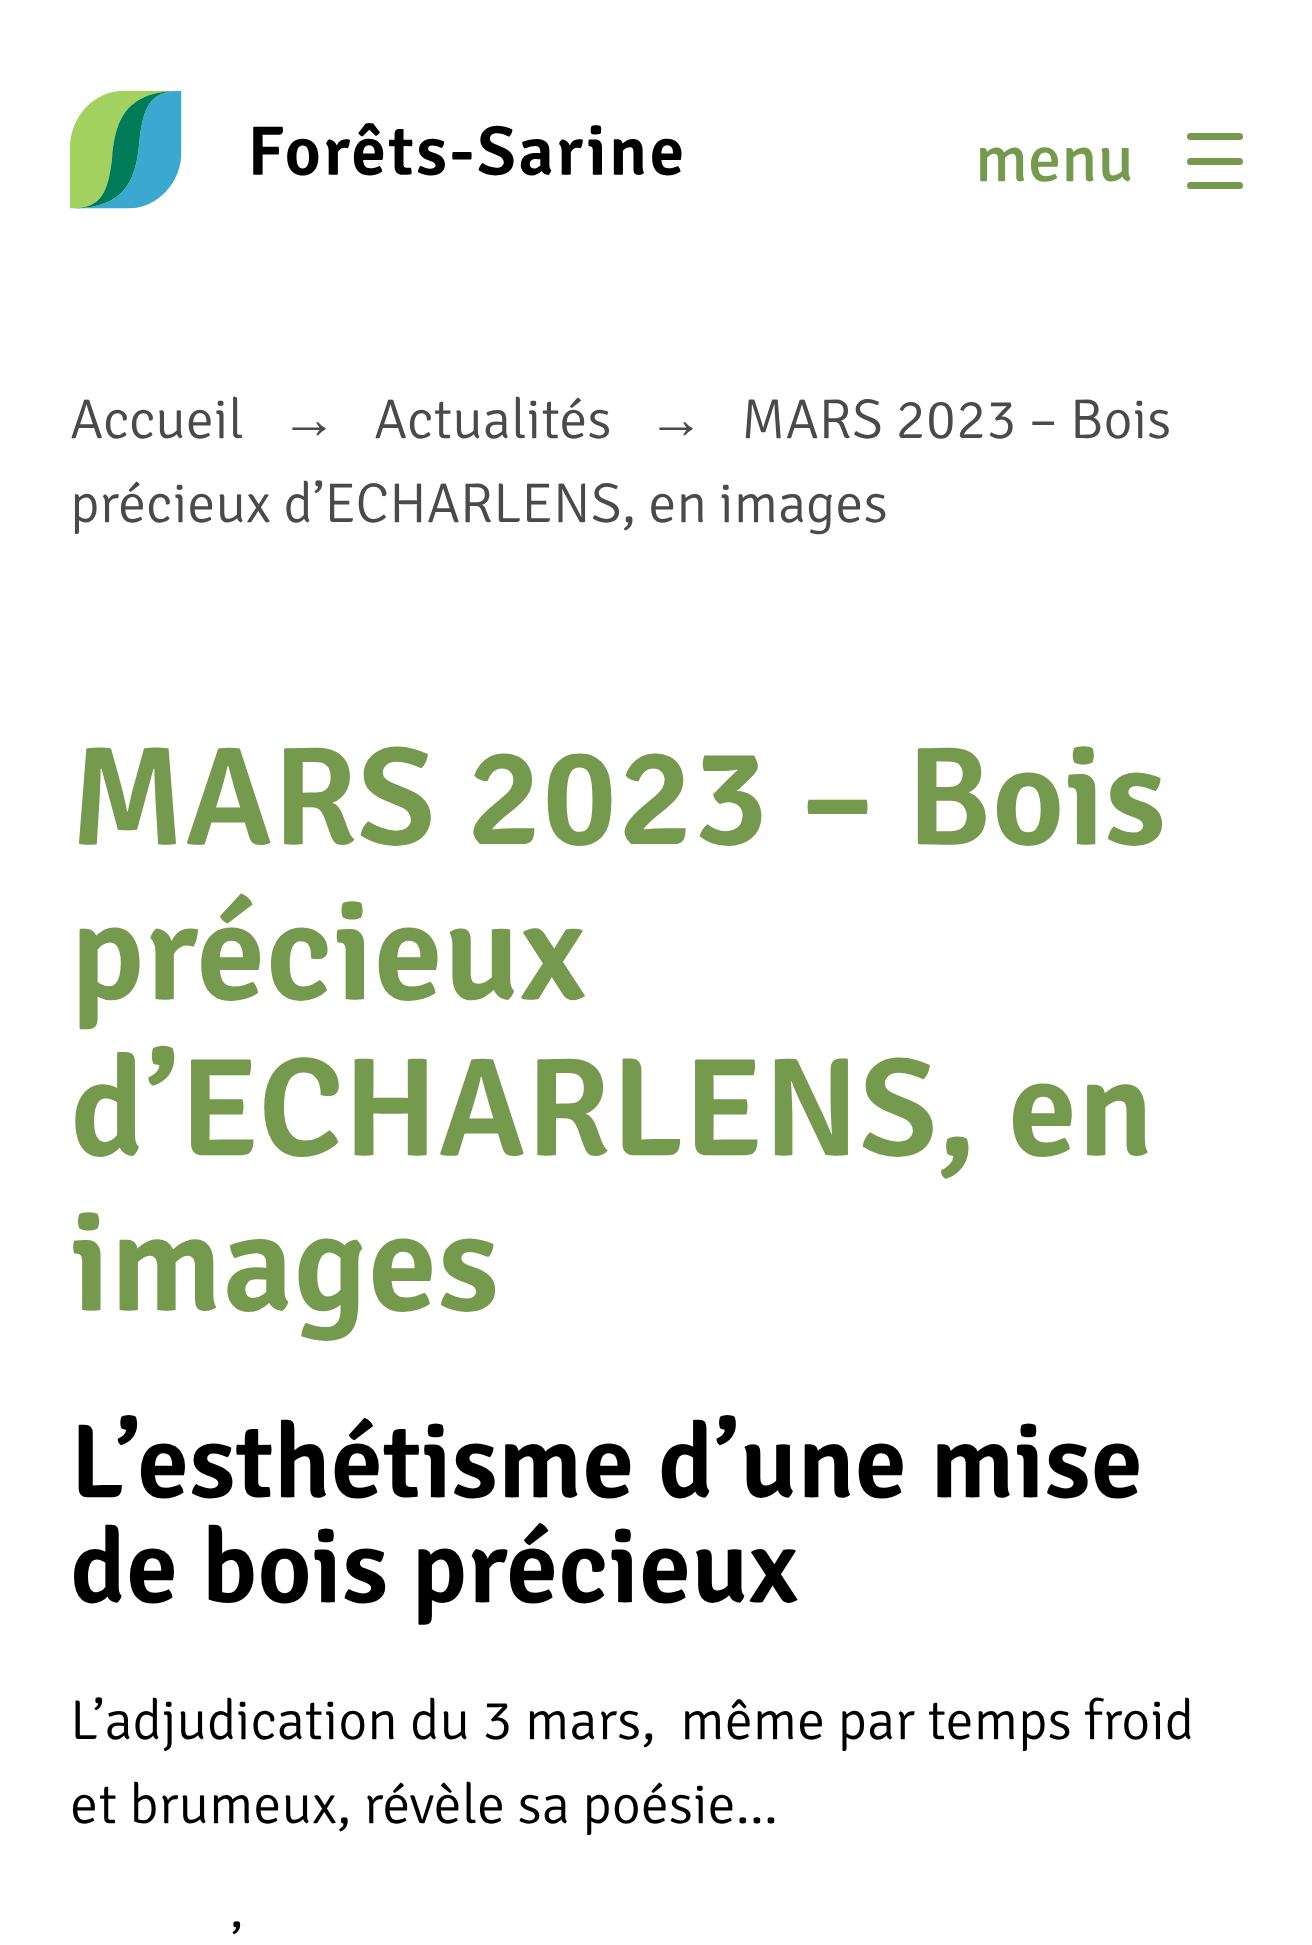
<svg xmlns="http://www.w3.org/2000/svg" width="1312" height="1945">
<style>
.a{font:66.5px Signika;fill:#759a4d}
.b{font:300 56px Signika;fill:#4a4a4a}
.c{font:56px Liberation Sans;fill:#4a4a4a}
.d{font:600 140px Signika;fill:#759a4d}
.e{font:600 105px Signika;fill:#000}
.f{font:300 56px Signika;fill:#000}
</style>
<rect width="100%" height="100%" fill="#fff"/>
<image href="1.png" x="70" y="90" width="612" height="119"/>
<rect fill="#759a4d" x="1187" y="133" width="56" height="7" rx="3.5"/>
<rect fill="#759a4d" x="1187" y="158" width="56" height="7" rx="3.5"/>
<rect fill="#759a4d" x="1187" y="182" width="56" height="7" rx="3.5"/>
<text class="a" x="975" y="181">menu</text>
<text class="b" x="70" y="438">Accueil</text>
<text class="c" x="281" y="438">→</text>
<text class="b" x="374" y="438">Actualités</text>
<text class="c" x="648" y="438">→</text>
<text class="b" x="741" y="438">MARS 2023 – Bois</text>
<text class="b" x="70" y="522">précieux d’ECHARLENS, en images</text>
<text class="d" x="70" y="844">MARS 2023 – Bois</text>
<text class="d" x="70" y="999">précieux</text>
<text class="d" x="70" y="1155">d’ECHARLENS, en</text>
<text class="d" x="70" y="1310">images</text>
<text class="e" x="70" y="1497">L’esthétisme d’une mise</text>
<text class="e" x="70" y="1602">de bois précieux</text>
<text class="f" xml:space="preserve" x="70" y="1739">L’adjudication du 3 mars,  même par temps froid</text>
<text class="f" x="70" y="1823">et brumeux, révèle sa poésie…</text>
<text class="f" x="231" y="1963">’</text>
</svg>
